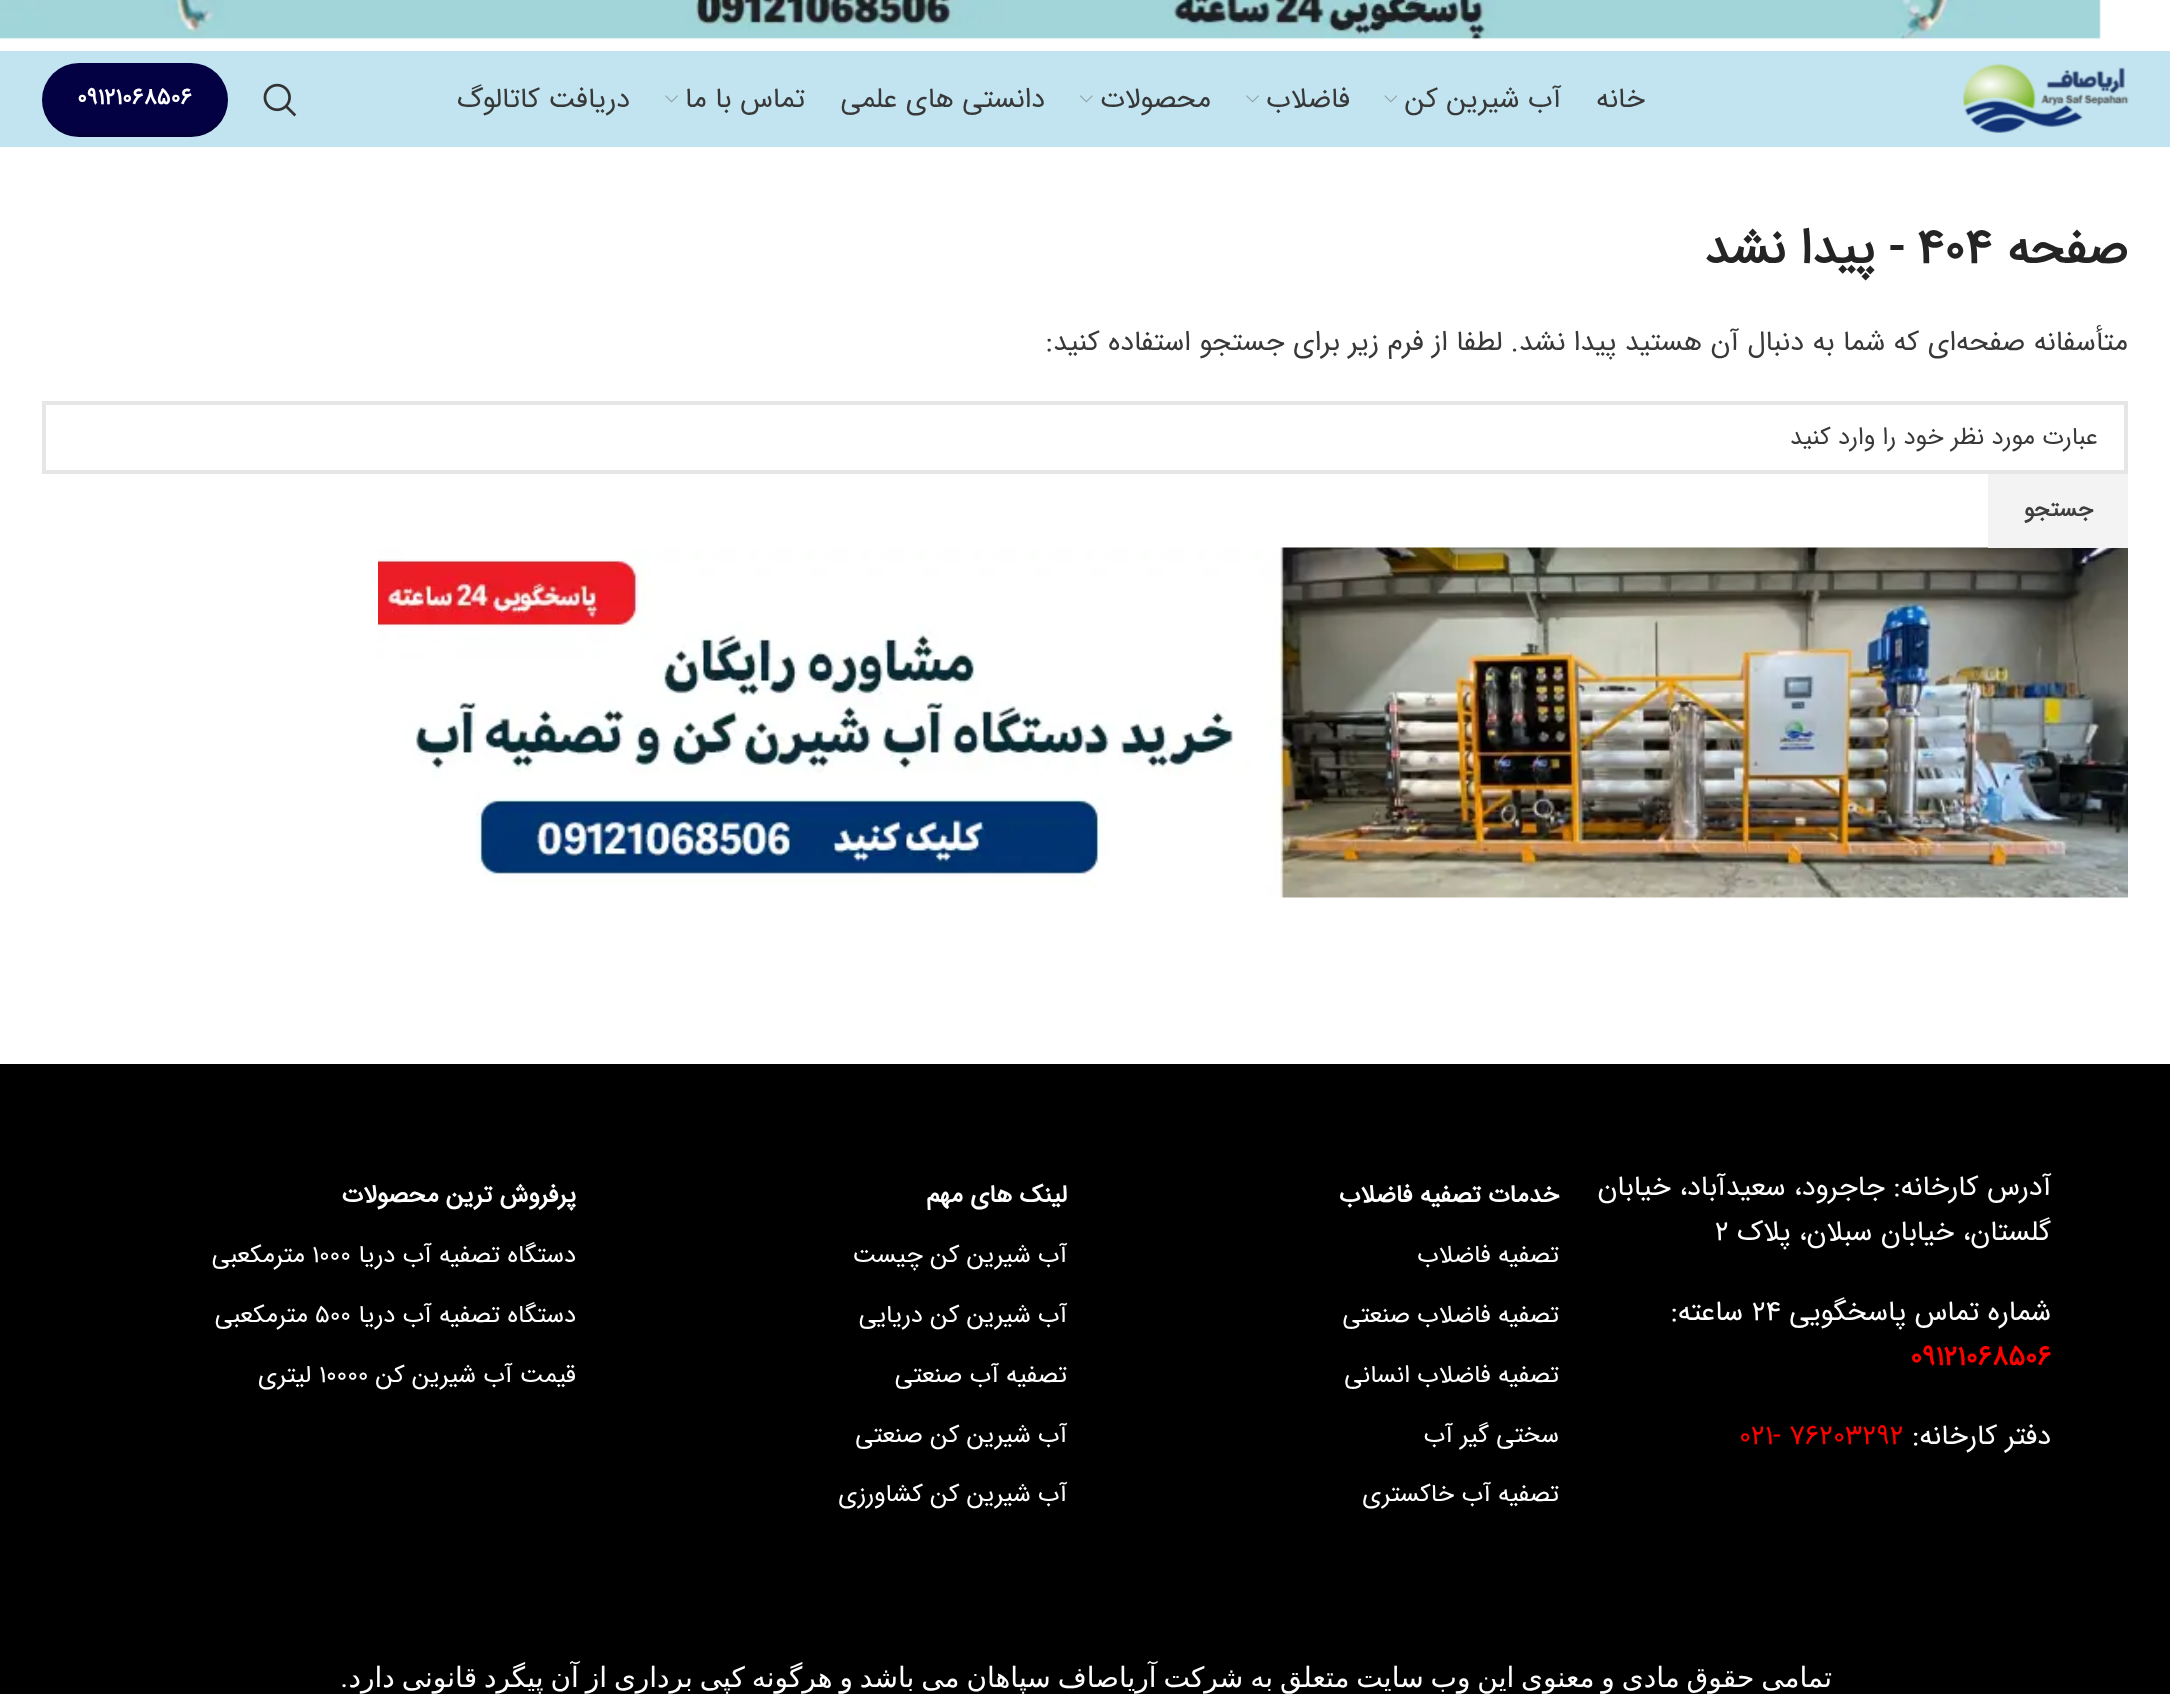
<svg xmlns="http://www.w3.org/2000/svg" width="2170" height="1694">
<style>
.a{font:28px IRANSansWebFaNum;direction:rtl;fill:#383838}
.b{font:bold 22.75px IRANSansWebFaNum;fill:#fff}
.c{font:bold 49px IRANSansWebFaNum;direction:rtl;fill:#242424}
.d{font:bold 49px IRANSansWebFaNum;fill:#242424}
.e{font:24.5px IRANSansWebFaNum;direction:rtl;fill:#383838}
.f{font:bold 22.75px IRANSansWebFaNum;direction:rtl;fill:#3e3e3e}
.g{font:28px IRANSansWebFaNum;direction:rtl;fill:#fff}
.h{font:28px IRANSansWebFaNum;fill:#fff}
.i{font:bold 28px IRANSansWebFaNum;fill:#f00}
.j{font:28px IRANSansWebFaNum;fill:#f00}
.k{font:bold 24.5px IRANSansWebFaNum;direction:rtl;fill:#fff}
.l{font:24.5px IRANSansWebFaNum;direction:rtl;fill:#fff}
.m{font:24.5px IRANSansWebFaNum;fill:#fff}
.n{font:28px DejaVu Sans;direction:rtl;fill:#fff}
.o{font:28px Roboto;direction:rtl;fill:#fff}
</style>
<rect width="100%" height="100%" fill="#fff"/>
<image href="1.png" x="0" y="0" width="2101" height="40"/>
<path fill="#c1e4f0" d="M0 51h2170v96H0z"/>
<image href="2.png" x="1963" y="63" width="166" height="70"/>
<image href="3.png" x="1384" y="95" width="13" height="8"/>
<image href="4.png" x="1246" y="95" width="13" height="8"/>
<image href="5.png" x="1080" y="95" width="13" height="8"/>
<image href="4.png" x="665" y="95" width="13" height="8"/>
<image href="6.png" x="263" y="83" width="34" height="34"/>
<rect fill="#040044" x="42" y="63" width="186" height="74" rx="37"/>
<path fill="#00000026" d="M42 98v2c0 20 17 37 37 37h112c20 0 37-17 37-37v-2c-1 20-18 35-37 35h-112c-20 0-36-15-37-35z"/>
<path fill="none" stroke="#e6e6e6" stroke-width="4" d="M44 403h2082v69H44z"/>
<image href="7.png" x="378" y="547" width="1750" height="351"/>
<path fill="#f3f3f3" d="M1988 474h140v74H1988z"/>
<path fill="#000" d="M0 1064h2170v630H0z"/>
<text class="a" x="1645" y="107">خانه</text>
<text class="a" x="1561" y="107">آب شیرین کن</text>
<text class="a" x="1350" y="107">فاضلاب</text>
<text class="a" x="1211" y="107">محصولات</text>
<text class="a" x="1045" y="107">دانستی های علمی</text>
<text class="a" x="805" y="107">تماس با ما</text>
<text class="a" x="630" y="107">دریافت کاتالوگ</text>
<text class="b" x="77" y="104">09121068506</text>
<text class="c" x="2128" y="263">صفحه</text>
<text class="d" x="1917" y="263">404</text>
<text class="c" x="1903" y="263">- پیدا نشد</text>
<text class="a" x="2128" y="350">متأسفانه صفحه‌ای که شما به دنبال آن هستید پیدا نشد. لطفا از فرم زیر برای جستجو استفاده کنید:</text>
<text class="e" x="2098" y="444">عبارت مورد نظر خود را وارد کنید</text>
<text class="f" x="2093" y="516">جستجو</text>
<text class="g" x="2051" y="1195">آدرس کارخانه: جاجرود، سعیدآباد، خیابان</text>
<text class="g" x="2051" y="1240">گلستان، خیابان سبلان، پلاک</text>
<text class="h" x="1715" y="1240">2</text>
<text class="g" x="2051" y="1320">شماره تماس پاسخگویی</text>
<text class="h" x="1752" y="1320">24</text>
<text class="g" x="1743" y="1320">ساعته:</text>
<text class="i" x="1910" y="1365">09121068506</text>
<text class="g" x="2051" y="1444">دفتر کارخانه:</text>
<text class="j" x="1739" y="1444">021- 76203292</text>
<text class="k" x="1559" y="1202">خدمات تصفیه فاضلاب</text>
<text class="l" x="1559" y="1262">تصفیه فاضلاب</text>
<text class="l" x="1559" y="1322">تصفیه فاضلاب صنعتی</text>
<text class="l" x="1559" y="1382">تصفیه فاضلاب انسانی</text>
<text class="l" x="1559" y="1442">سختی گیر آب</text>
<text class="l" x="1559" y="1501">تصفیه آب خاکستری</text>
<text class="k" x="1067" y="1202">لینک های مهم</text>
<text class="l" x="1067" y="1262">آب شیرین کن چیست</text>
<text class="l" x="1067" y="1322">آب شیرین کن دریایی</text>
<text class="l" x="1067" y="1382">تصفیه آب صنعتی</text>
<text class="l" x="1067" y="1442">آب شیرین کن صنعتی</text>
<text class="l" x="1067" y="1501">آب شیرین کن کشاورزی</text>
<text class="k" x="576" y="1202">پرفروش ترین محصولات</text>
<text class="l" x="576" y="1262">دستگاه تصفیه آب دریا</text>
<text class="m" x="312" y="1262">1000</text>
<text class="l" x="305" y="1262">مترمکعبی</text>
<text class="l" x="576" y="1322">دستگاه تصفیه آب دریا</text>
<text class="m" x="315" y="1322">500</text>
<text class="l" x="308" y="1322">مترمکعبی</text>
<text class="l" x="576" y="1382">قیمت آب شیرین کن</text>
<text class="m" x="319" y="1382">10000</text>
<text class="l" x="311" y="1382">لیتری</text>
<text class="n" x="1832" y="1687" word-spacing="-2">تمامی حقوق مادی و معنوی این وب سایت متعلق به شرکت آریاصاف سپاهان می باشد و هرگونه کپی برداری از آن پیگرد قانونی دارد</text>
<text class="o" x="348" y="1687">.</text>
</svg>
